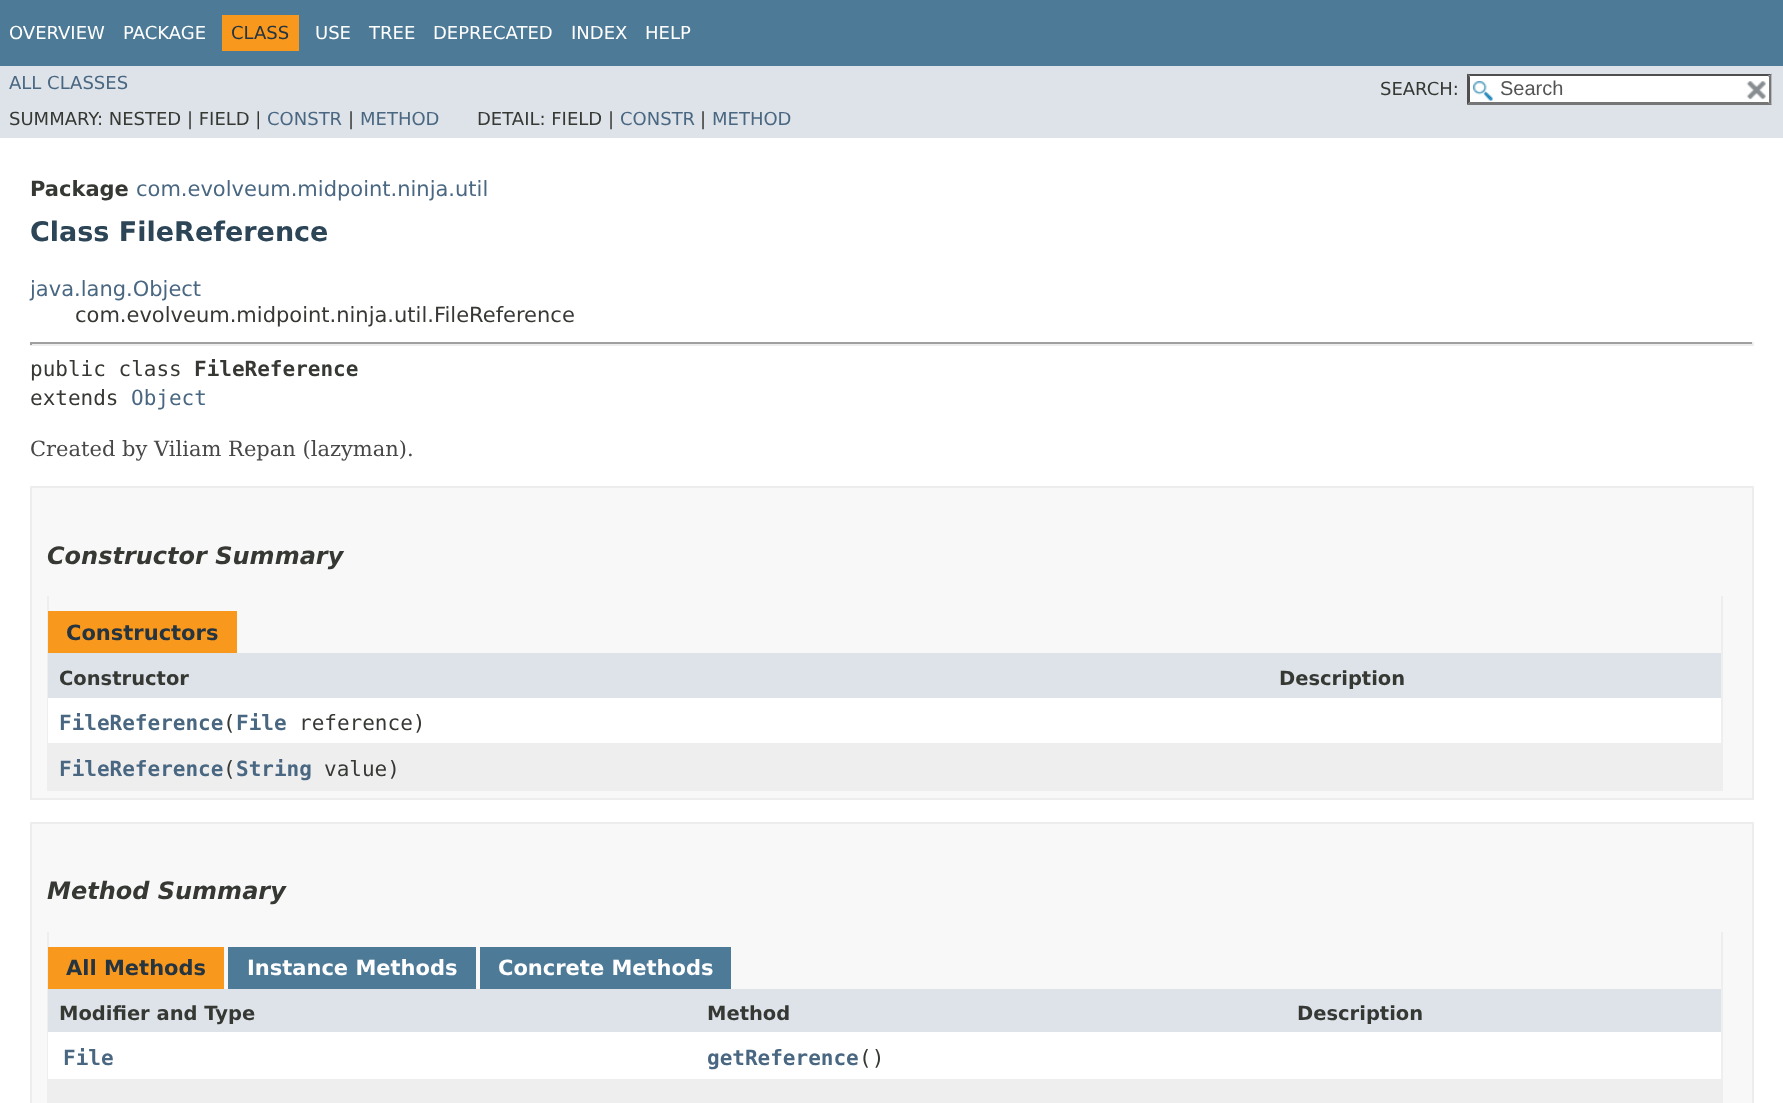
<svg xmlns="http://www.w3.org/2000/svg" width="1783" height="1103">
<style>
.a{font:18px DejaVu Sans;fill:#fff}
.b{font:18px DejaVu Sans;fill:#253441}
.c{font:18px DejaVu Sans;fill:#4a6782}
.d{font:18px DejaVu Sans;fill:#353833}
.e{font:20px Liberation Sans;fill:#545454}
.f{font:bold 21px DejaVu Sans;fill:#353833}
.g{font:21px DejaVu Sans;fill:#4a6782}
.h{font:bold 27px DejaVu Sans;fill:#2c4557}
.i{font:21px DejaVu Sans;fill:#353833}
.j{font:21px DejaVu Sans Mono;fill:#353833}
.k{font:bold 21px DejaVu Sans Mono;fill:#353833}
.l{font:21px DejaVu Sans Mono;fill:#4a6782}
.m{font:21px DejaVu Serif;fill:#474747}
.n{font:italic bold 24px DejaVu Sans;fill:#353833}
.o{font:bold 21px DejaVu Sans;fill:#253441}
.p{font:bold 19.5px DejaVu Sans;fill:#353833}
.q{font:bold 21px DejaVu Sans Mono;fill:#4a6782}
.r{font:bold 21px DejaVu Sans;fill:#fff}
</style>
<rect width="100%" height="100%" fill="#fff"/>
<path fill="#4d7a97" d="M0 0h1783v66H0z"/>
<path fill="#f8981d" d="M222 15h77v36H222z"/>
<path fill="#dee3e9" d="M0 66h1783v72H0z"/>
<path fill="#fff" d="M1467 74h305v31H1467z"/>
<image href="1.png" x="1473" y="81" width="20" height="20"/>
<path fill="#4f4f4f" d="M1467 74h305l-4 2h-298z"/>
<path fill="#767676" d="M1771.5 73.5v31.5l-3-3v-25.5z"/>
<path fill="#767676" d="M1772 105h-305l3-3h298z"/>
<path fill="#4f4f4f" d="M1467 105v-31.5l3 3v25.5z"/>
<path fill="#fff" d="M1768 77h1v25H1768z"/>
<image href="2.png" x="1746" y="81" width="20" height="19"/>
<path fill="#9f9f9f" d="M30 342h1724v2H30z"/>
<path fill="#eee" d="M1752 342h2v3H1752z"/>
<path fill="#eee" d="M30 344h1724v2H30z"/>
<path fill="#9f9f9f" d="M30 342h2v3H30z"/>
<path fill="#f8f8f8" stroke="#ededed" stroke-width="2" d="M31 487h1722v312H31z"/>
<path fill="#eee" d="M1721 596h2v195H1721z"/>
<path fill="#eee" d="M47 789h1675v2H47z"/>
<path fill="#eee" d="M47 596h2v195H47z"/>
<path fill="#f8981d" d="M48 611h189v42H48z"/>
<path fill="#dee3e9" d="M48 653h1673v45H48z"/>
<path fill="#fff" d="M48 698h1673v45H48z"/>
<path fill="#eeeeef" d="M49 743h1672v46H49z"/>
<path fill="#f8f8f8" stroke="#ededed" stroke-width="2" d="M31 823h1722v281H31z"/>
<path fill="#eee" d="M1721 932h2v171H1721z"/>
<path fill="#eee" d="M47 932h2v171H47z"/>
<path fill="#f8981d" d="M48 947h176v42H48z"/>
<path fill="#4d7a97" d="M228 947h248v42H228z"/>
<path fill="#4d7a97" d="M480 947h251v42H480z"/>
<path fill="#dee3e9" d="M48 989h1673v43H48z"/>
<path fill="#fff" d="M48 1032h1673v47H48z"/>
<path fill="#eeeeef" d="M49 1079h1672v24H49z"/>
<text class="a" x="9" y="39">OVERVIEW</text>
<text class="a" x="123" y="39">PACKAGE</text>
<text class="b" x="231" y="39">CLASS</text>
<text class="a" x="315" y="39">USE</text>
<text class="a" x="369" y="39">TREE</text>
<text class="a" x="433" y="39">DEPRECATED</text>
<text class="a" x="571" y="39">INDEX</text>
<text class="a" x="645" y="39">HELP</text>
<text class="c" x="9" y="89">ALL CLASSES</text>
<text class="d" x="1380" y="95">SEARCH:</text>
<text class="e" x="1500" y="95">Search</text>
<text class="d" x="9" y="125">SUMMARY: NESTED | FIELD |</text>
<text class="c" x="267" y="125">CONSTR</text>
<text class="d" x="348" y="125">|</text>
<text class="c" x="360" y="125">METHOD</text>
<text class="d" x="477" y="125">DETAIL: FIELD |</text>
<text class="c" x="620" y="125">CONSTR</text>
<text class="d" x="700" y="125">|</text>
<text class="c" x="712" y="125">METHOD</text>
<text class="f" x="30" y="196">Package</text>
<text class="g" x="136" y="196">com.evolveum.midpoint.ninja.util</text>
<text class="h" x="30" y="241">Class FileReference</text>
<text class="g" x="30" y="296">java.lang.Object</text>
<text class="i" x="75" y="322">com.evolveum.midpoint.ninja.util.FileReference</text>
<text class="j" x="30" y="376">public class</text>
<text class="k" x="194" y="376">FileReference</text>
<text class="j" x="30" y="405">extends</text>
<text class="l" x="131" y="405">Object</text>
<text class="m" x="30" y="456">Created by Viliam Repan (lazyman).</text>
<text class="n" x="47" y="564">Constructor Summary</text>
<text class="o" x="66" y="640">Constructors</text>
<text class="p" x="59" y="685">Constructor</text>
<text class="p" x="1279" y="685">Description</text>
<text class="q" x="59" y="730">FileReference File</text>
<text class="j" x="223" y="730">(</text>
<text class="j" x="299" y="730">reference)</text>
<text class="q" x="59" y="776">FileReference String</text>
<text class="j" x="324" y="776">value)</text>
<text class="j" x="223" y="776">(</text>
<text class="n" x="47" y="899">Method Summary</text>
<text class="o" x="66" y="975">All Methods</text>
<text class="r" x="247" y="975">Instance Methods</text>
<text class="r" x="498" y="975">Concrete Methods</text>
<text class="p" x="59" y="1020">Modifier and Type</text>
<text class="p" x="707" y="1020">Method</text>
<text class="p" x="1297" y="1020">Description</text>
<text class="q" x="63" y="1065">File</text>
<text class="q" x="707" y="1065">getReference</text>
<text class="j" x="859" y="1065">()</text>
</svg>
